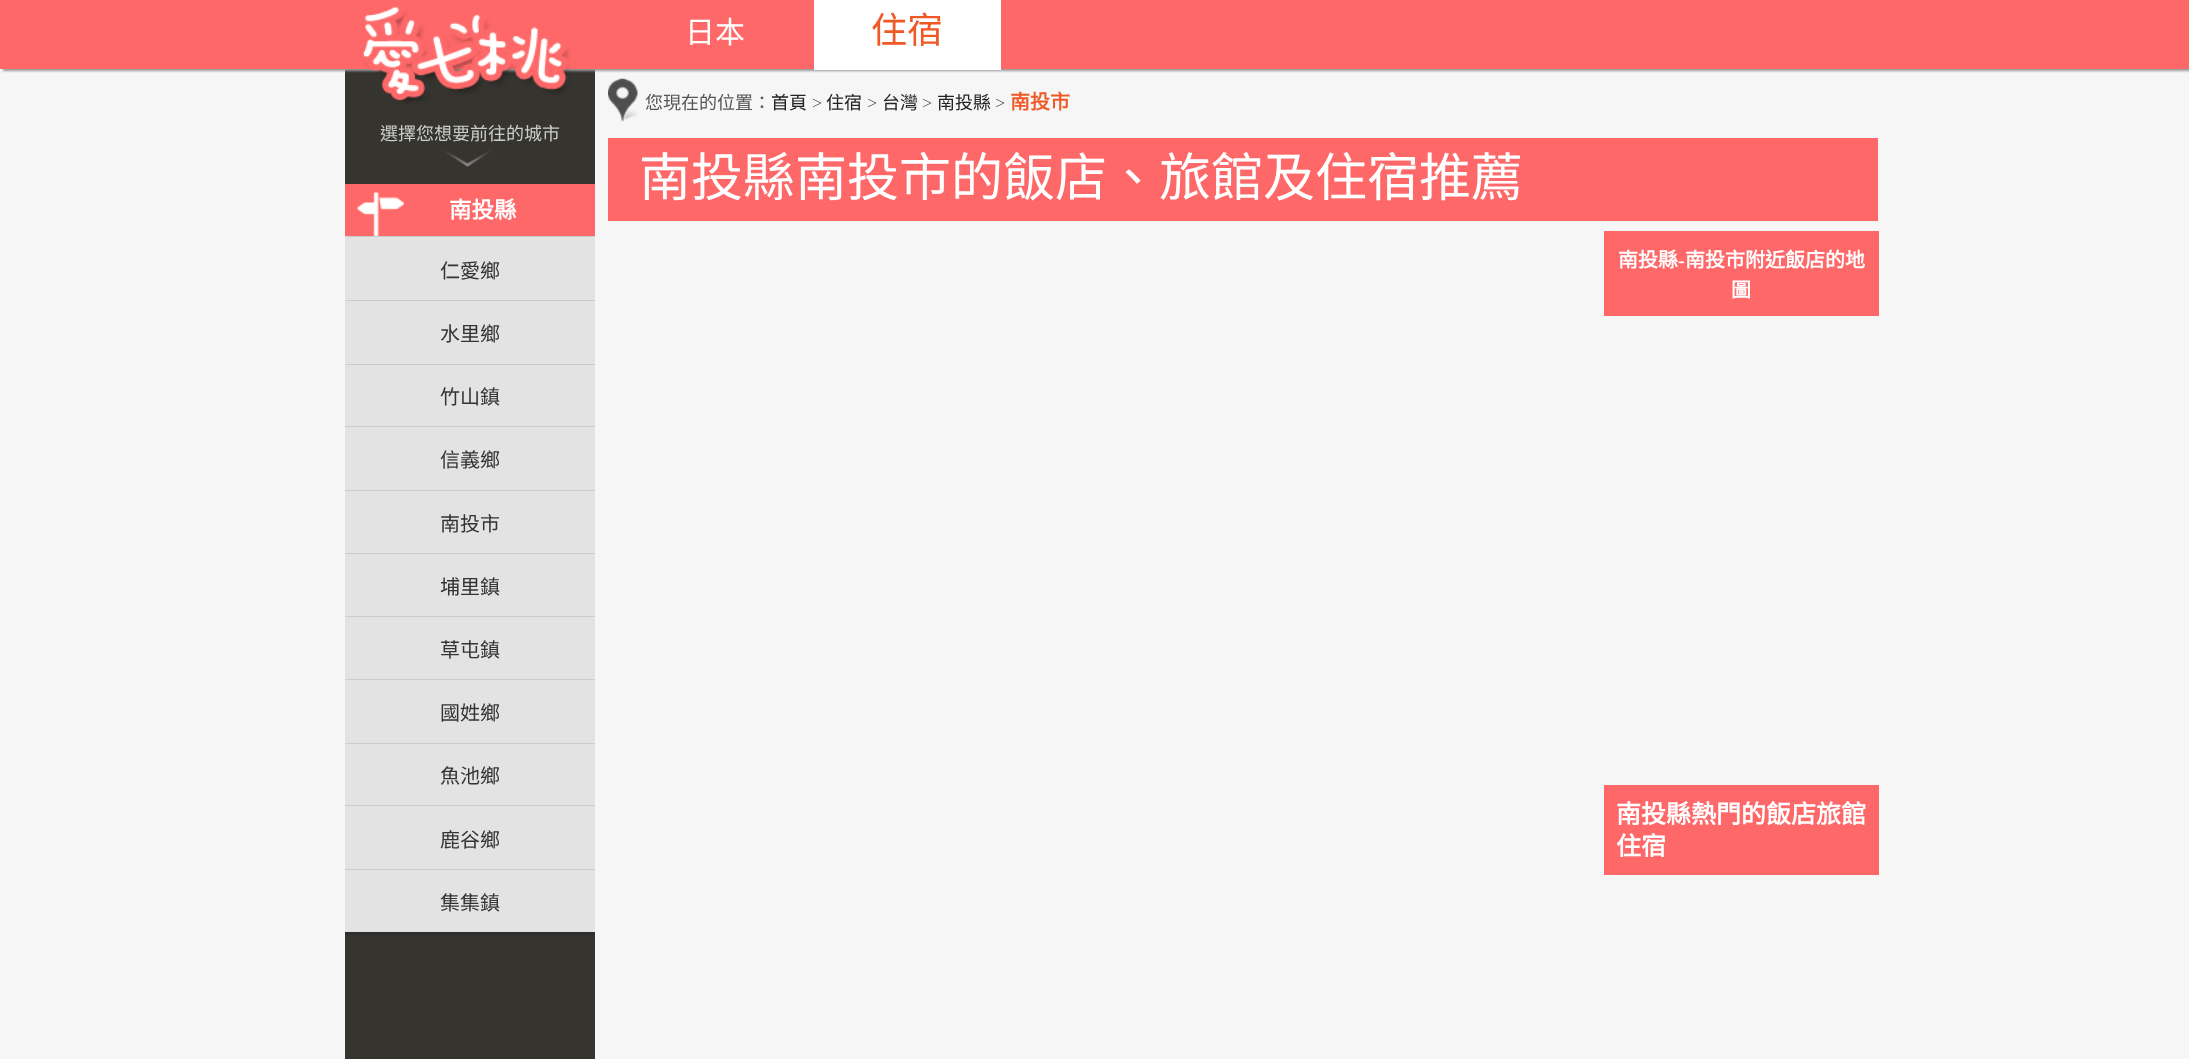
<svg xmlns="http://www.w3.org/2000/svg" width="2189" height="1059">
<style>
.a{font:30px Noto Sans CJK TC;fill:#fff}
.b{font:36px Noto Sans CJK TC;fill:#f05826}
.c{font:18px Noto Sans CJK TC;fill:#ccc}
.d{font:bold 22.5px Noto Sans CJK TC;fill:#fff}
.e{font:20px Noto Sans CJK TC;fill:#333}
.f{font:18px Noto Sans CJK TC;fill:#555}
.g{font:18px Noto Sans CJK TC;fill:#222}
.h{font:18px Liberation Serif;fill:#555}
.i{font:bold 20px Noto Sans CJK TC;fill:#f05826}
.j{font:52px Noto Sans CJK TC;fill:#fff}
.k{font:bold 20px Noto Sans CJK TC;fill:#fff}
.l{font:bold 20px Liberation Serif;fill:#fff}
.m{font:bold 25px Noto Sans CJK TC;fill:#fff}
</style>
<rect width="100%" height="100%" fill="#f6f6f6"/>
<path fill="#35342f" d="M345 69h250v990H345z"/>
<path fill="#999" filter="blur(1px)" d="M3 3h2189v68H3z"/>
<path fill="#fe6868" d="M0 0h2189v69H0z"/>
<image href="1.png" x="363" y="7" width="208" height="97"/>
<path fill="#fff" d="M814 0h187v70H814z"/>
<image href="2.png" x="442" y="149" width="51" height="18"/>
<path fill="#fe6868" d="M345 184h250v52H345z"/>
<image href="3.png" x="357" y="192" width="47" height="44"/>
<path fill="#e3e3e3" d="M345 237h250v695H345z"/>
<path fill="#ccc" d="M345 236h250v1H345z"/>
<path fill="#ccc" d="M345 300h250v1H345z"/>
<path fill="#ccc" d="M345 364h250v1H345z"/>
<path fill="#ccc" d="M345 426h250v1H345z"/>
<path fill="#ccc" d="M345 490h250v1H345z"/>
<path fill="#ccc" d="M345 553h250v1H345z"/>
<path fill="#ccc" d="M345 616h250v1H345z"/>
<path fill="#ccc" d="M345 679h250v1H345z"/>
<path fill="#ccc" d="M345 743h250v1H345z"/>
<path fill="#ccc" d="M345 805h250v1H345z"/>
<path fill="#ccc" d="M345 869h250v1H345z"/>
<path fill="#2f2f2d" d="M345 932h250v3H345z"/>
<image href="4.png" x="608" y="78" width="30" height="44"/>
<path fill="#fe6868" d="M608 138h1270v83H608z"/>
<path fill="#fe6868" d="M1604 231h275v85H1604z"/>
<path fill="#fe6868" d="M1604 785h275v90H1604z"/>
<text class="a" x="685" y="43">日本</text>
<text class="b" x="871" y="43">住宿</text>
<text class="c" x="380" y="140">選擇您想要前往的城市</text>
<text class="d" x="449" y="218">南投縣</text>
<text class="e" x="440" y="278">仁愛鄉</text>
<text class="e" x="440" y="341">水里鄉</text>
<text class="e" x="440" y="404">竹山鎮</text>
<text class="e" x="440" y="467">信義鄉</text>
<text class="e" x="440" y="531">南投市</text>
<text class="e" x="440" y="594">埔里鎮</text>
<text class="e" x="440" y="657">草屯鎮</text>
<text class="e" x="440" y="720">國姓鄉</text>
<text class="e" x="440" y="783">魚池鄉</text>
<text class="e" x="440" y="847">鹿谷鄉</text>
<text class="e" x="440" y="910">集集鎮</text>
<text class="f" x="645" y="109">您現在的位置：</text>
<text class="g" x="771" y="109">首頁</text>
<text class="h" x="812" y="109">&gt;</text>
<text class="g" x="826" y="109">住宿</text>
<text class="h" x="867" y="109">&gt;</text>
<text class="g" x="882" y="109">台灣</text>
<text class="h" x="922" y="109">&gt;</text>
<text class="g" x="937" y="109">南投縣</text>
<text class="h" x="995" y="109">&gt;</text>
<text class="i" x="1010" y="109">南投市</text>
<text class="j" x="639" y="196">南投縣南投市的飯店、旅館及住宿推薦</text>
<text class="k" x="1618" y="267">南投縣</text>
<text class="l" x="1678" y="267">-</text>
<text class="k" x="1685" y="267">南投市附近飯店的地</text>
<text class="k" x="1731" y="297">圖</text>
<text class="m" x="1616" y="823">南投縣熱門的飯店旅館</text>
<text class="m" x="1616" y="855">住宿</text>
</svg>
